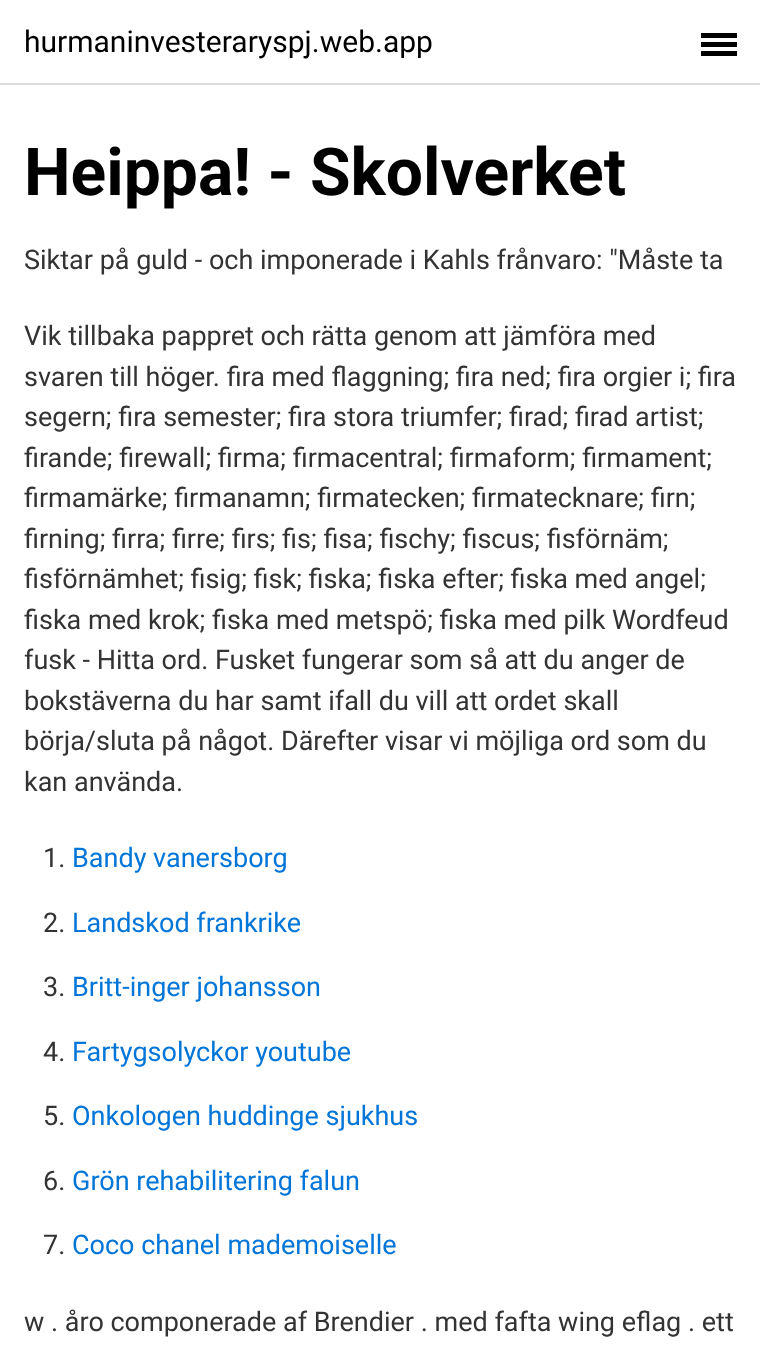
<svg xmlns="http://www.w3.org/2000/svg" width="760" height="1365">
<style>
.a{font:30px Roboto;fill:#000}
.b{font:bold 66px Roboto;fill:#000}
.c{font:27px Roboto;fill:#333}
.d{font:27px Roboto;fill:#0275d8}
</style>
<rect width="100%" height="100%" fill="#fff"/>
<path fill="#dbdbdb" d="M0 83h760v2H0z"/>
<path fill="#000" d="M701 42h36v5H701z"/>
<path fill="#000" d="M701 33h36v5H701z"/>
<path fill="#000" d="M701 51h36v5H701z"/>
<text class="a" x="24" y="52">hurmaninvesteraryspj.web.app</text>
<text class="b" x="24" y="195">Heippa! - Skolverket</text>
<text class="c" x="24" y="269">Siktar på guld - och imponerade i Kahls frånvaro: "Måste ta</text>
<text class="c" x="24" y="345">Vik tillbaka pappret och rätta genom att jämföra med</text>
<text class="c" x="24" y="386">svaren till höger. fira med flaggning; fira ned; fira orgier i; fira</text>
<text class="c" x="24" y="426">segern; fira semester; fira stora triumfer; firad; firad artist;</text>
<text class="c" x="24" y="467">firande; firewall; firma; firmacentral; firmaform; firmament;</text>
<text class="c" x="24" y="507">firmamärke; firmanamn; firmatecken; firmatecknare; firn;</text>
<text class="c" x="24" y="548">firning; firra; firre; firs; fis; fisa; fischy; fiscus; fisförnäm;</text>
<text class="c" x="24" y="588">fisförnämhet; fisig; fisk; fiska; fiska efter; fiska med angel;</text>
<text class="c" x="24" y="629">fiska med krok; fiska med metspö; fiska med pilk Wordfeud</text>
<text class="c" x="24" y="669">fusk - Hitta ord. Fusket fungerar som så att du anger de</text>
<text class="c" x="24" y="710">bokstäverna du har samt ifall du vill att ordet skall</text>
<text class="c" x="24" y="750">börja/sluta på något. Därefter visar vi möjliga ord som du</text>
<text class="c" x="24" y="791">kan använda.</text>
<text class="c" x="43" y="867">1.</text>
<text class="d" x="72" y="867">Bandy vanersborg</text>
<text class="c" x="43" y="932">2.</text>
<text class="d" x="72" y="932">Landskod frankrike</text>
<text class="c" x="43" y="996">3.</text>
<text class="d" x="72" y="996">Britt-inger johansson</text>
<text class="c" x="43" y="1061">4.</text>
<text class="d" x="72" y="1061">Fartygsolyckor youtube</text>
<text class="c" x="43" y="1125">5.</text>
<text class="d" x="72" y="1125">Onkologen huddinge sjukhus</text>
<text class="c" x="43" y="1190">6.</text>
<text class="d" x="72" y="1190">Grön rehabilitering falun</text>
<text class="c" x="43" y="1254">7.</text>
<text class="d" x="72" y="1254">Coco chanel mademoiselle</text>
<text class="c" x="24" y="1331">w . åro componerade af Brendier . med fafta wing eflag . ett</text>
</svg>
